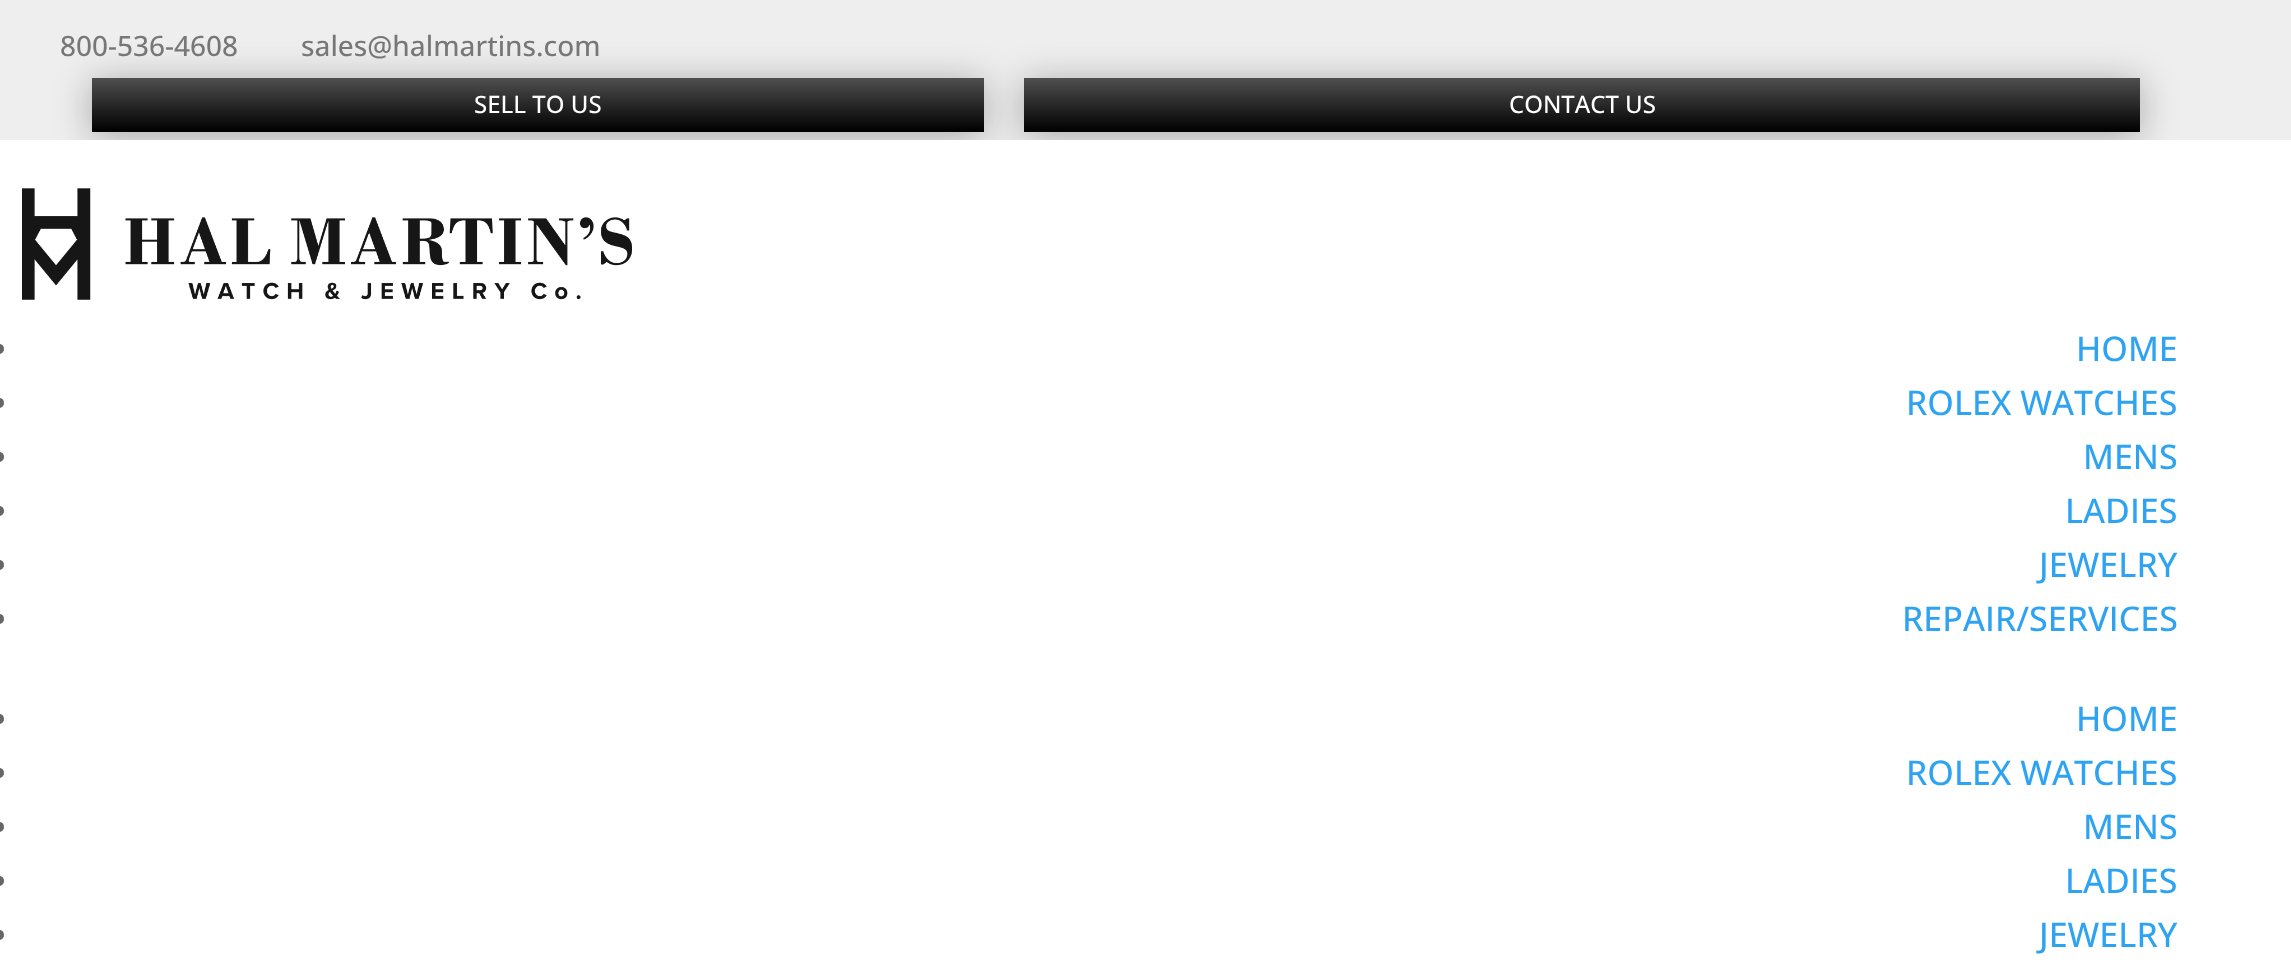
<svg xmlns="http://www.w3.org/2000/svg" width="2291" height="962">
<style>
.a{font:500 28px Open Sans;fill:#777}
.b{font:500 24px Open Sans;fill:#fff}
.c{font:500 34px Open Sans;fill:#2ea3f2}
</style>
<defs>
<linearGradient id="g1" gradientUnits="userSpaceOnUse" x1="538" y1="78" x2="538" y2="132"><stop offset="0" stop-color="#4f4f4f"/><stop offset="0.99" stop-color="#000"/></linearGradient>
<linearGradient id="g2" gradientUnits="userSpaceOnUse" x1="1582" y1="78" x2="1582" y2="132"><stop offset="0" stop-color="#4f4f4f"/><stop offset="1" stop-color="#000"/></linearGradient>
</defs>
<rect width="100%" height="100%" fill="#eee"/>
<path fill="#0000004d" filter="blur(18px)" d="M92 82h892v54H92z"/>
<path fill="url(#g1)" d="M92 78h892v54H92z"/>
<path fill="#0000004d" filter="blur(18px)" d="M1024 82h1116v54H1024z"/>
<path fill="url(#g2)" d="M1024 78h1116v54H1024z"/>
<path fill="#fff" d="M0 140h2291v822H0z"/>
<image href="1.png" x="22" y="188" width="610" height="112"/>
<path fill="#666" d="M0 344h-1c3 0 5 2 5 5c0 3-2 5-5 5h1z"/>
<path fill="#666" d="M0 398h-1c3 0 5 2 5 5c0 3-2 5-5 5h1z"/>
<path fill="#666" d="M0 452h-1c3 0 5 2 5 5c0 3-2 5-5 5h1z"/>
<path fill="#666" d="M0 506h-1c3 0 5 2 5 5c0 3-2 5-5 5h1z"/>
<path fill="#666" d="M0 560h-1c3 0 5 2 5 5c0 3-2 5-5 5h1z"/>
<path fill="#666" d="M0 614h-1c3 0 5 2 5 5c0 3-2 5-5 5h1z"/>
<path fill="#666" d="M0 714h-1c3 0 5 2 5 5c0 3-2 5-5 5h1z"/>
<path fill="#666" d="M0 768h-1c3 0 5 2 5 5c0 3-2 5-5 5h1z"/>
<path fill="#666" d="M0 822h-1c3 0 5 2 5 5c0 3-2 5-5 5h1z"/>
<path fill="#666" d="M0 876h-1c3 0 5 2 5 5c0 3-2 5-5 5h1z"/>
<path fill="#666" d="M0 930h-1c3 0 5 2 5 5c0 3-2 5-5 5h1z"/>
<text class="a" x="60" y="56">800-536-4608</text>
<text class="a" x="301" y="56">sales@halmartins.com</text>
<text class="b" x="474" y="113">SELL TO US</text>
<text class="b" x="1509" y="113">CONTACT US</text>
<text class="c" x="2076" y="361">HOME</text>
<text class="c" x="1906" y="415">ROLEX WATCHES</text>
<text class="c" x="2083" y="469">MENS</text>
<text class="c" x="2065" y="523">LADIES</text>
<text class="c" x="2039" y="577">JEWELRY</text>
<text class="c" x="1902" y="631">REPAIR/SERVICES</text>
<text class="c" x="2076" y="731">HOME</text>
<text class="c" x="1906" y="785">ROLEX WATCHES</text>
<text class="c" x="2083" y="839">MENS</text>
<text class="c" x="2065" y="893">LADIES</text>
<text class="c" x="2039" y="947">JEWELRY</text>
</svg>
